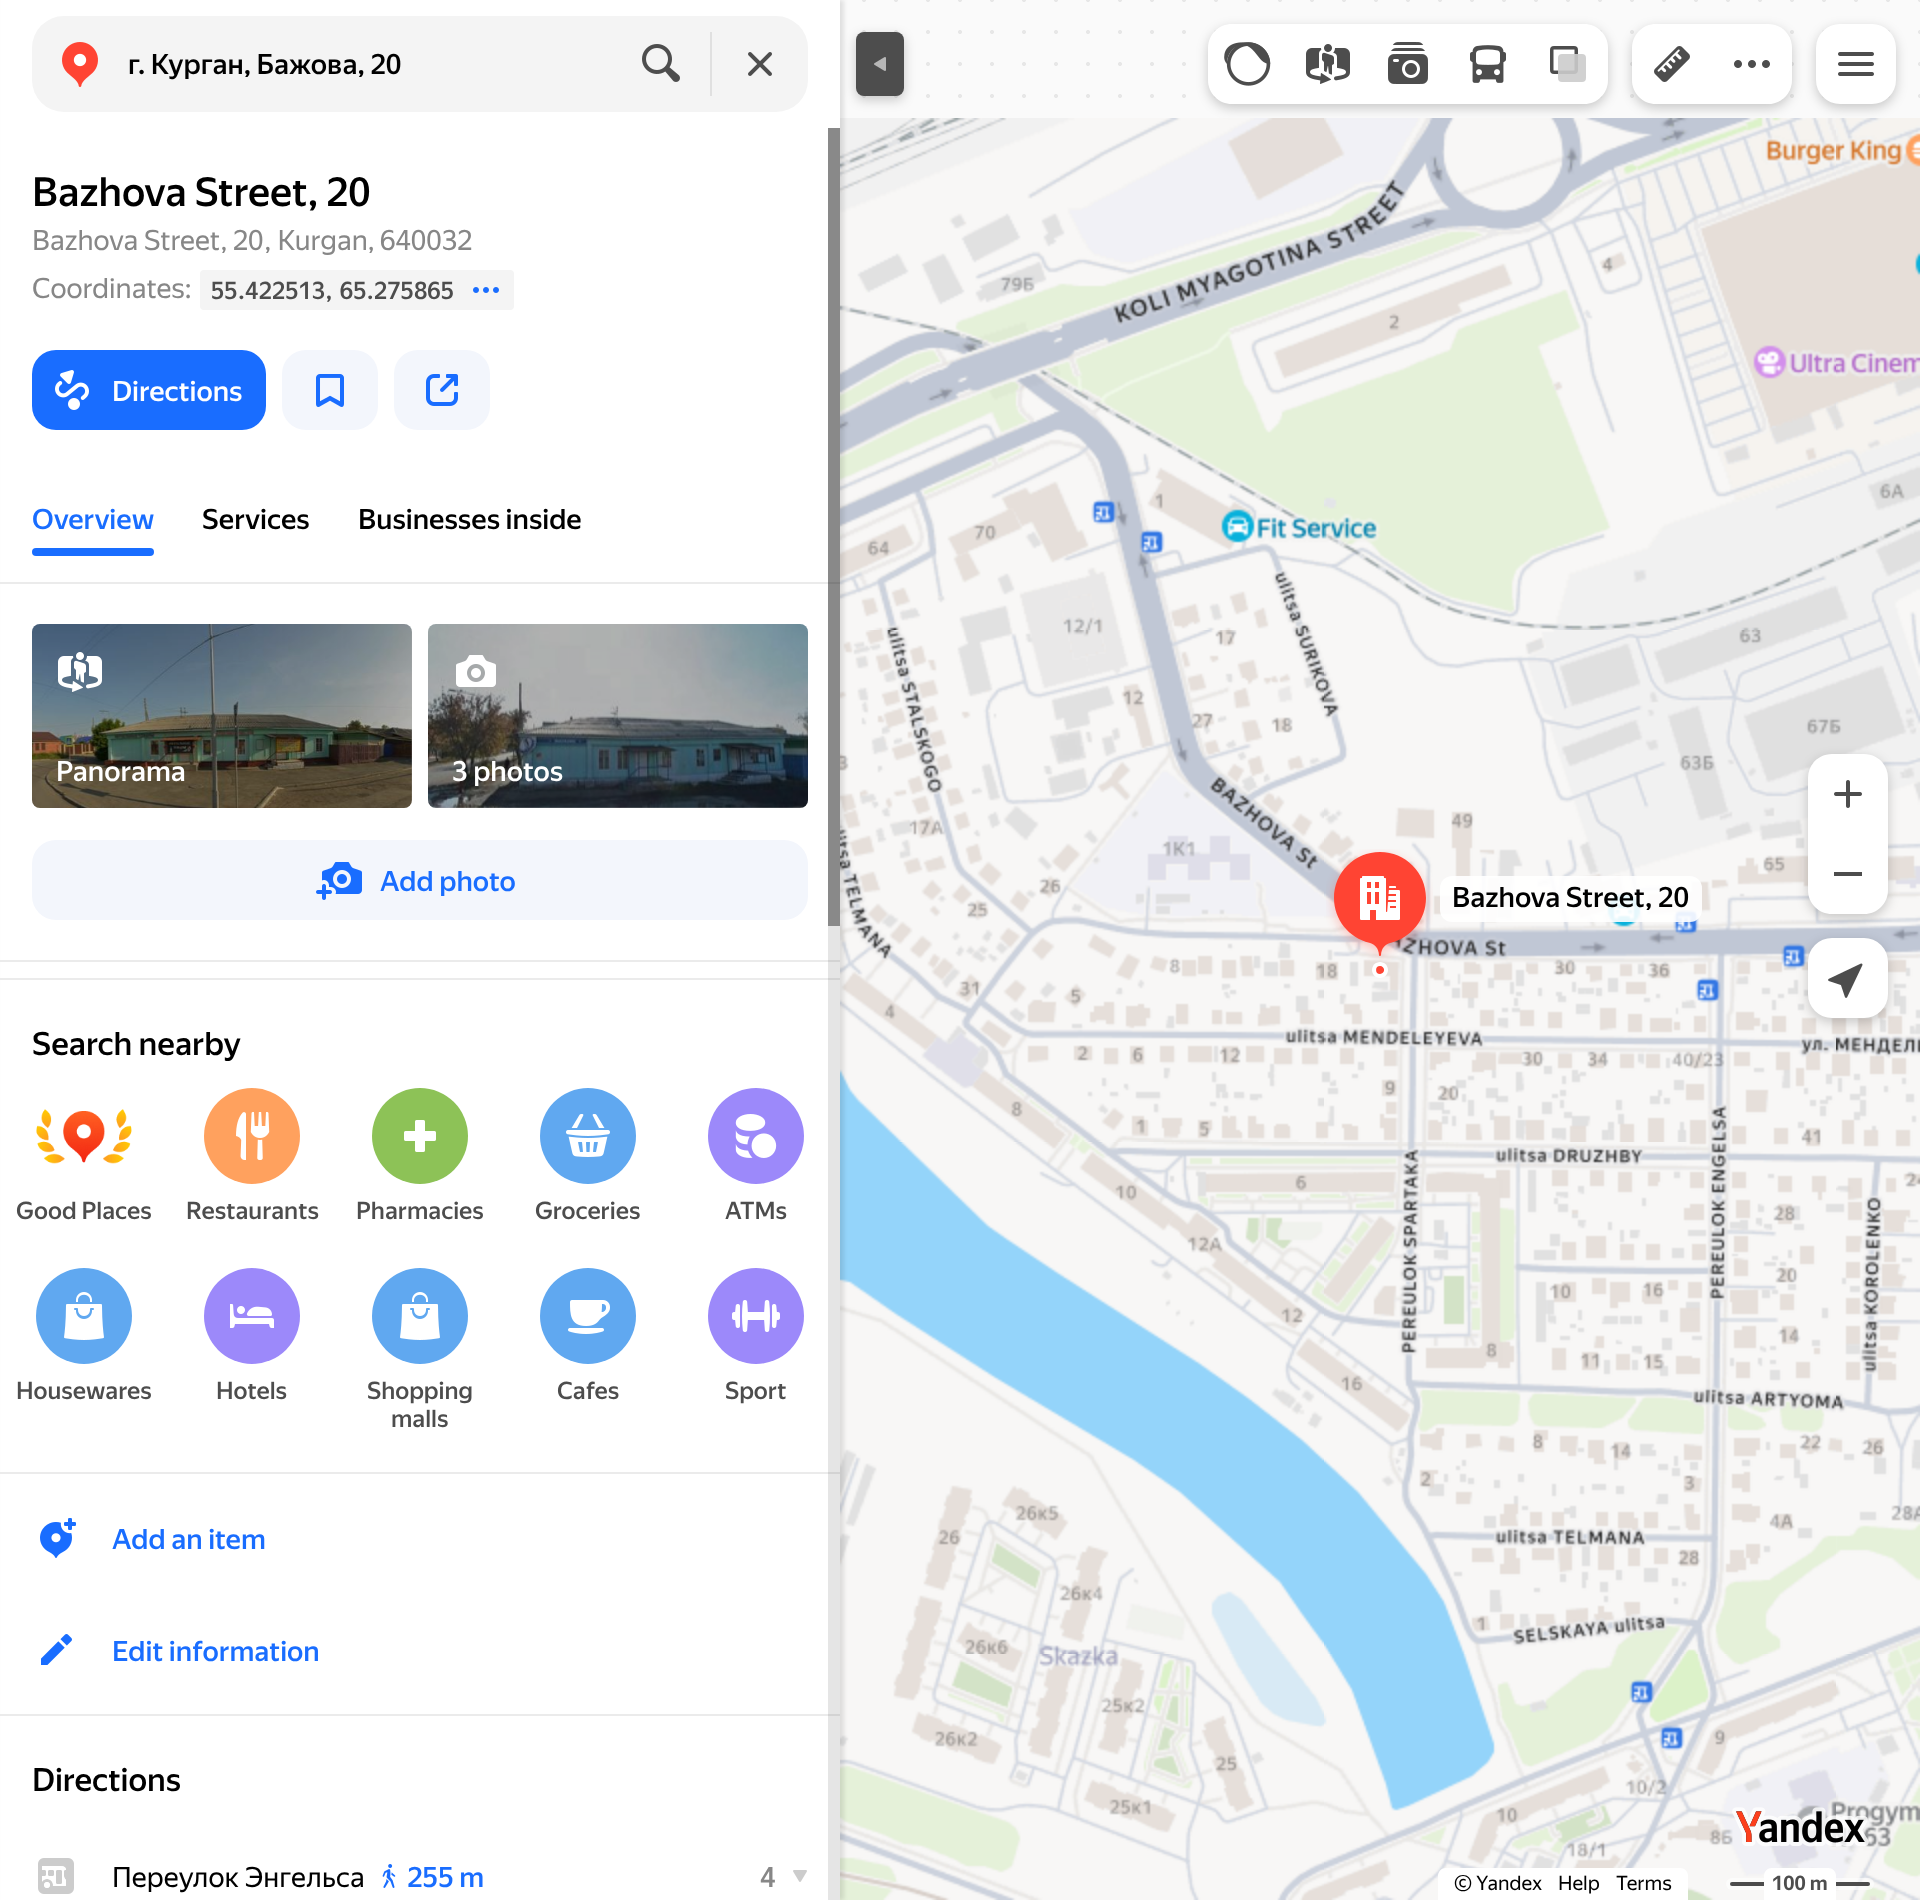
<svg xmlns="http://www.w3.org/2000/svg" width="1920" height="1900">
<style>
.a{font:500 28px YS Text;fill:#000}
.b{font:500 40px YS Text;fill:#000}
.c{font:28px YS Text;fill:#878787}
.d{font:500 24px YS Text;fill:#4d4d4d}
.e{font:500 28px YS Text;fill:#fff}
.f{font:500 28px YS Text;fill:#196dff}
.g{font:500 32px YS Text;fill:#000}
.h{font:28px YS Text;fill:#000}
.i{font:500 28px YS Text;fill:#878787}
.j{font:20px YS Text;fill:#000}
.k{font:bold 20px YS Text;fill:#4d4d4d}
</style>
<rect width="100%" height="100%" fill="#fff"/>
<image href="1.png" x="840" y="0" width="1080" height="118"/>
<image href="40.png" x="840" y="118" width="484" height="512"/>
<image href="43.png" x="840" y="630" width="484" height="512"/>
<image href="46.png" x="840" y="1142" width="484" height="512"/>
<image href="49.png" x="840" y="1654" width="484" height="246"/>
<path fill="#0000001a" filter="blur(2px)" d="M4 0h840v1900H4z"/>
<rect fill="#00000033" filter="blur(6px)" x="856" y="36" width="48" height="64" rx="8"/>
<path fill="#fff" d="M1 0h839v1900H1z"/>
<rect fill="#f4f4f4" x="32" y="16" width="776" height="96" rx="32"/>
<image href="2.png" x="62" y="42" width="36" height="45"/>
<image href="3.png" x="642" y="44" width="38" height="38"/>
<path fill="#e0e0e0" d="M710 32h2v64H710z"/>
<image href="4.png" x="748" y="52" width="24" height="24"/>
<image href="41.png" x="1324" y="118" width="512" height="512"/>
<rect fill="#00000033" filter="blur(6px)" x="1208" y="28" width="400" height="80" rx="24"/>
<path fill="#fff" d="M1232 24h56v80h-56c-13.5 0-24-10.5-24-24v-32c0-13.5 10.5-24 24-24z"/>
<image href="5.png" x="1224" y="42" width="47" height="44"/>
<path fill="#fff" d="M1288 24h240v80H1288z"/>
<image href="6.png" x="1306" y="44" width="44" height="40"/>
<path fill="#fff" d="M1528 24h56c13.5 0 24 10.5 24 24v32c0 13.5-10.5 24-24 24h-56z"/>
<image href="7.png" x="1550" y="46" width="36" height="36"/>
<image href="8.png" x="1388" y="42" width="40" height="42"/>
<image href="9.png" x="1470" y="45" width="36" height="38"/>
<rect fill="#00000033" filter="blur(6px)" x="1632" y="28" width="160" height="80" rx="24"/>
<path fill="#fff" d="M1656 24h56v80h-56c-13.5 0-24-10.5-24-24v-32c0-13.5 10.5-24 24-24z"/>
<image href="10.png" x="1654" y="46" width="36" height="36"/>
<path fill="#fff" d="M1712 24h56c13.5 0 24 10.5 24 24v32c0 13.5-10.5 24-24 24h-56z"/>
<image href="11.png" x="1734" y="60" width="36" height="8"/>
<image href="42.png" x="1836" y="118" width="84" height="512"/>
<rect fill="#00000033" filter="blur(6px)" x="1816" y="28" width="80" height="80" rx="24"/>
<rect fill="#fff" x="1816" y="24" width="80" height="80" rx="24"/>
<image href="12.png" x="1838" y="52" width="36" height="24"/>
<image href="44.png" x="1324" y="630" width="512" height="512"/>
<image href="45.png" x="1836" y="630" width="84" height="512"/>
<rect fill="#00000033" filter="blur(6px)" x="1808" y="758" width="80" height="160" rx="24"/>
<path fill="#fff" d="M1832 754h32c13.5 0 24 10.5 24 24v56h-80v-56c0-13.5 10.5-24 24-24z"/>
<image href="13.png" x="1834" y="780" width="28" height="28"/>
<path fill="#fff" d="M1808 834h80v56c0 13.5-10.5 24-24 24h-32c-13.5 0-24-10.5-24-24z"/>
<path fill="#4d4d4d" d="M1834 872h28v4H1834z"/>
<rect fill="#00000033" filter="blur(6px)" x="1808" y="942" width="80" height="80" rx="24"/>
<rect fill="#fff" x="1808" y="938" width="80" height="80" rx="24"/>
<image href="14.png" x="1828" y="963" width="35" height="35"/>
<rect fill="#4d4d4d" x="856" y="32" width="48" height="64" rx="8"/>
<image href="15.png" x="874" y="57" width="12" height="14"/>
<rect fill="#f4f4f4" x="200" y="270" width="314" height="40" rx="4"/>
<image href="16.png" x="473" y="287" width="26" height="6"/>
<rect fill="#196dff" x="32" y="350" width="234" height="80" rx="24"/>
<image href="17.png" x="55" y="370" width="34" height="40"/>
<rect fill="#f3f6fc" x="282" y="350" width="96" height="80" rx="24"/>
<image href="18.png" x="316" y="374" width="28" height="33"/>
<rect fill="#f3f6fc" x="394" y="350" width="96" height="80" rx="24"/>
<image href="19.png" x="426" y="374" width="32" height="32"/>
<rect fill="#196dff" x="32" y="548" width="122" height="8" rx="4"/>
<path fill="#ebebeb" d="M0 582h840v2H0z"/>
<path fill="#ebebeb" d="M0 960h840v2H0z"/>
<image href="20.png" x="32" y="624" width="380" height="184"/>
<rect fill="#0000004d" x="32" y="624" width="380" height="184" rx="8"/>
<image href="21.png" x="58" y="652" width="44" height="40"/>
<image href="22.png" x="428" y="624" width="380" height="184"/>
<rect fill="#0000004d" x="428" y="624" width="380" height="184" rx="8"/>
<image href="23.png" x="456" y="655" width="40" height="32"/>
<rect fill="#f3f6fc" x="32" y="840" width="776" height="80" rx="24"/>
<image href="24.png" x="316" y="862" width="46" height="38"/>
<path fill="#ebebeb" d="M0 978h840v2H0z"/>
<path fill="#ebebeb" d="M0 1472h840v2H0z"/>
<image href="25.png" x="36" y="1109" width="96" height="55"/>
<circle fill="#ffa15e" cx="252" cy="1136" r="48"/>
<image href="26.png" x="236" y="1112" width="34" height="48"/>
<circle fill="#8dc257" cx="420" cy="1136" r="48"/>
<image href="27.png" x="404" y="1120" width="32" height="32"/>
<circle fill="#60a8f0" cx="588" cy="1136" r="48"/>
<image href="28.png" x="566" y="1114" width="44" height="43"/>
<circle fill="#9c89fa" cx="756" cy="1136" r="48"/>
<image href="29.png" x="735" y="1114" width="42" height="44"/>
<circle fill="#60a8f0" cx="84" cy="1316" r="48"/>
<image href="30.png" x="64" y="1292" width="40" height="48"/>
<circle fill="#9c89fa" cx="252" cy="1316" r="48"/>
<image href="31.png" x="230" y="1304" width="44" height="24"/>
<circle fill="#60a8f0" cx="420" cy="1316" r="48"/>
<image href="30.png" x="400" y="1292" width="40" height="48"/>
<circle fill="#60a8f0" cx="588" cy="1316" r="48"/>
<image href="32.png" x="568" y="1300" width="42" height="34"/>
<circle fill="#9c89fa" cx="756" cy="1316" r="48"/>
<image href="33.png" x="732" y="1300" width="48" height="32"/>
<path fill="#ebebeb" d="M0 1714h840v2H0z"/>
<image href="34.png" x="40" y="1518" width="36" height="40"/>
<image href="35.png" x="41" y="1634" width="31" height="31"/>
<image href="36.png" x="38" y="1858" width="36" height="36"/>
<image href="37.png" x="382" y="1864" width="14" height="24"/>
<image href="38.png" x="793" y="1870" width="14" height="12"/>
<path fill="#0000001a" d="M828 128h12v1772H828z"/>
<path fill="#00000066" d="M828 128h12v798H828z"/>
<image href="50.png" x="1324" y="1654" width="512" height="246"/>
<image href="51.png" x="1836" y="1654" width="84" height="246"/>
<image href="39.png" x="1732" y="1807" width="137" height="40"/>
<path fill="#fff" d="M1446 1868h234c4.5 0 8 3.5 8 8v24h-250v-24c0-4.5 3.5-8 8-8z"/>
<rect fill="#ffffff99" x="1726" y="1878" width="148" height="12" rx="6"/>
<rect fill="#4d4d4d" x="1730" y="1882" width="140" height="4" rx="2"/>
<path fill="#fff" d="M1772 1868h56c4.5 0 8 3.5 8 8v24h-72v-24c0-4.5 3.5-8 8-8z"/>
<image href="47.png" x="1324" y="1142" width="512" height="512"/>
<image href="48.png" x="1836" y="1142" width="84" height="512"/>
<image href="52.png" x="1326" y="849" width="107" height="129"/>
<image href="53.png" x="1360" y="876" width="40" height="44"/>
<rect fill="#ffffffe6" x="1440" y="876" width="262" height="46" rx="12"/>
<text class="a" x="128" y="74">г. Курган, Бажова, 20</text>
<text class="b" x="32" y="206">Bazhova Street, 20</text>
<text class="c" x="32" y="250">Bazhova Street, 20, Kurgan, 640032</text>
<text class="c" x="32" y="298">Coordinates:</text>
<text class="d" x="211" y="299">55.422513, 65.275865</text>
<text class="e" x="112" y="401">Directions</text>
<text class="f" x="32" y="529">Overview</text>
<text class="a" x="202" y="529">Services</text>
<text class="a" x="358" y="529">Businesses inside</text>
<text class="e" x="56" y="781">Panorama</text>
<text class="e" x="452" y="781">3 photos</text>
<text class="f" x="380" y="891">Add photo</text>
<text class="g" x="32" y="1055">Search nearby</text>
<text class="d" x="16" y="1219">Good Places</text>
<text class="d" x="186" y="1219">Restaurants</text>
<text class="d" x="356" y="1219">Pharmacies</text>
<text class="d" x="535" y="1219">Groceries</text>
<text class="d" x="725" y="1219">ATMs</text>
<text class="d" x="16" y="1399">Housewares</text>
<text class="d" x="216" y="1399">Hotels</text>
<text class="d" x="367" y="1399">Shopping</text>
<text class="d" x="391" y="1427">malls</text>
<text class="d" x="557" y="1399">Cafes</text>
<text class="d" x="725" y="1399">Sport</text>
<text class="f" x="112" y="1549">Add an item</text>
<text class="f" x="112" y="1661">Edit information</text>
<text class="g" x="32" y="1791">Directions</text>
<text class="h" x="112" y="1887">Переулок Энгельса</text>
<text class="f" x="407" y="1887">255 m</text>
<text class="i" x="760" y="1887">4</text>
<text class="j" x="1454" y="1890">© Yandex</text>
<text class="j" x="1558" y="1890">Help</text>
<text class="j" x="1616" y="1890">Terms</text>
<text class="k" x="1772" y="1890">100 m</text>
<text class="a" x="1452" y="907">Bazhova Street, 20</text>
</svg>
